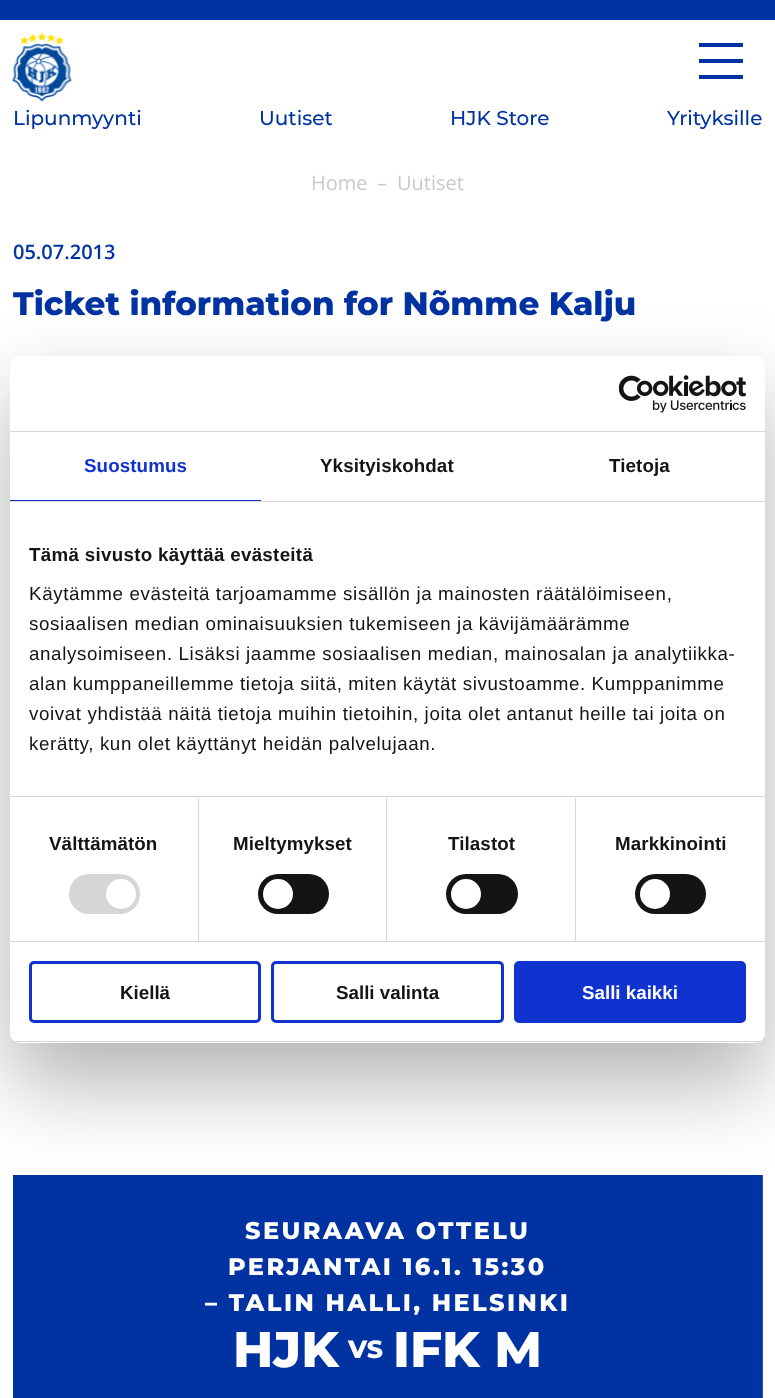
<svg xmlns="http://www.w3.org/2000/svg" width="775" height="1398">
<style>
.a{font:500 20px Montserrat;fill:#0033a1}
.b{font:20px Open Sans;fill:#cacaca}
.c{font:600 20px Open Sans;fill:#0033a1}
.d{font:800 32.5px Montserrat;fill:#0033a1}
.e{font:800 24px Montserrat;letter-spacing:2.4px;fill:#fff}
.f{font:800 50px Montserrat;fill:#fff}
.g{font:800 25px Montserrat;fill:#fff}
.h{font:bold 18.75px Liberation Sans;letter-spacing:0.1px;fill:#1032cf}
.i{font:bold 18.75px Liberation Sans;letter-spacing:0.1px;fill:#141414}
.j{font:bold 18.75px Liberation Sans;letter-spacing:0.3px;fill:#141414}
.k{font:18.75px Liberation Sans;letter-spacing:0.62px;fill:#141414}
.l{font:bold 18.75px Liberation Sans;fill:#141414}
.m{font:bold 18.75px Liberation Sans;fill:#fff}
</style>
<defs>
<clipPath id="clip1"><rect x="10" y="356" width="755" height="687" rx="10"/></clipPath>
<clipPath id="clip2"><path d="M13 265h750v58H13z"/></clipPath>
</defs>
<rect width="100%" height="100%" fill="#fff"/>
<path fill="#0033a1" d="M0 0h775v20H0z"/>
<image href="1.png" x="12" y="32" width="60" height="70"/>
<path fill="#0033a1" d="M699 59h44v4H699z"/>
<path fill="#0033a1" d="M699 43h44v4H699z"/>
<path fill="#0033a1" d="M699 75h44v4H699z"/>
<image href="2.png" x="13" y="1175" width="750" height="223"/>
<rect fill="#0000004d" filter="blur(42.5px)" x="10" y="396" width="755" height="687" rx="10"/>
<rect fill="#fff" x="10" y="356" width="755" height="687" rx="10"/>
<path fill="#d6d6d6" d="M10 431h755v1H10z"/>
<image href="3.png" x="619" y="375" width="127" height="38"/>
<path fill="#d6d6d6" d="M10 501h755v1H10z"/>
<path fill="#1032cf" d="M10 500h251v1H10z"/>
<path fill="#d6d6d6" d="M10 796h755v1H10z"/>
<path fill="#d6d6d6" d="M10 941h755v1H10z"/>
<path fill="#d6d6d6" d="M198 798h1v143H198z"/>
<rect fill="#d6d6d6" x="69" y="874" width="71" height="40" rx="20"/>
<circle fill="#fff" cx="121" cy="894" r="15"/>
<path fill="#d6d6d6" d="M386 798h1v143H386z"/>
<rect fill="#141414" x="258" y="874" width="71" height="40" rx="20"/>
<circle fill="#fff" cx="278" cy="894" r="15"/>
<path fill="#d6d6d6" d="M575 798h1v143H575z"/>
<rect fill="#141414" x="446" y="874" width="72" height="40" rx="20"/>
<circle fill="#fff" cx="466" cy="894" r="15"/>
<rect fill="#141414" x="635" y="874" width="71" height="40" rx="20"/>
<circle fill="#fff" cx="655" cy="894" r="15"/>
<g clip-path="url(#clip1)">
<path fill="#d6d6d6" d="M10 1041h755v1H10z"/>
</g>
<rect fill="none" stroke="#1032cf" stroke-width="3" x="30.5" y="962.5" width="229" height="59" rx="3.5"/>
<rect fill="none" stroke="#1032cf" stroke-width="3" x="272.5" y="962.5" width="230" height="59" rx="3.5"/>
<rect fill="#1032cf" stroke="#1032cf" stroke-width="3" x="515.5" y="962.5" width="229" height="59" rx="3.5"/>
<text class="a" x="13" y="125">Lipunmyynti</text>
<text class="a" x="259" y="125">Uutiset</text>
<text class="a" x="450" y="125">HJK Store</text>
<text class="a" x="667" y="125">Yrityksille</text>
<text class="b" x="311" y="190">Home</text>
<text class="b" x="377" y="190">–</text>
<text class="b" x="397" y="190">Uutiset</text>
<text class="c" x="13" y="259">05.07.2013</text>
<g clip-path="url(#clip2)">
<text class="d" x="13" y="315">Ticket information for Nõmme Kalju</text>
</g>
<text class="e" x="245" y="1239">SEURAAVA OTTELU</text>
<text class="e" x="228" y="1275">PERJANTAI 16.1. 15:30</text>
<text class="e" x="205" y="1311">– TALIN HALLI, HELSINKI</text>
<text class="f" x="233" y="1367">HJK</text>
<text class="g" x="348" y="1358">VS</text>
<text class="f" x="393" y="1367">IFK M</text>
<text class="h" x="84" y="472">Suostumus</text>
<text class="i" x="320" y="472">Yksityiskohdat</text>
<text class="i" x="609" y="472">Tietoja</text>
<text class="j" x="29" y="561">Tämä sivusto käyttää evästeitä</text>
<text class="k" x="29" y="600">Käytämme evästeitä tarjoamamme sisällön ja mainosten räätälöimiseen,</text>
<text class="k" x="29" y="630">sosiaalisen median ominaisuuksien tukemiseen ja kävijämäärämme</text>
<text class="k" x="29" y="660">analysoimiseen. Lisäksi jaamme sosiaalisen median, mainosalan ja analytiikka-</text>
<text class="k" x="29" y="690">alan kumppaneillemme tietoja siitä, miten käytät sivustoamme. Kumppanimme</text>
<text class="k" x="29" y="720">voivat yhdistää näitä tietoja muihin tietoihin, joita olet antanut heille tai joita on</text>
<text class="k" x="29" y="750">kerätty, kun olet käyttänyt heidän palvelujaan.</text>
<text class="i" x="49" y="850">Välttämätön</text>
<text class="i" x="233" y="850">Mieltymykset</text>
<text class="i" x="448" y="850">Tilastot</text>
<text class="i" x="615" y="850">Markkinointi</text>
<text class="l" x="120" y="999">Kiellä</text>
<text class="l" x="336" y="999">Salli valinta</text>
<text class="m" x="582" y="999">Salli kaikki</text>
</svg>
